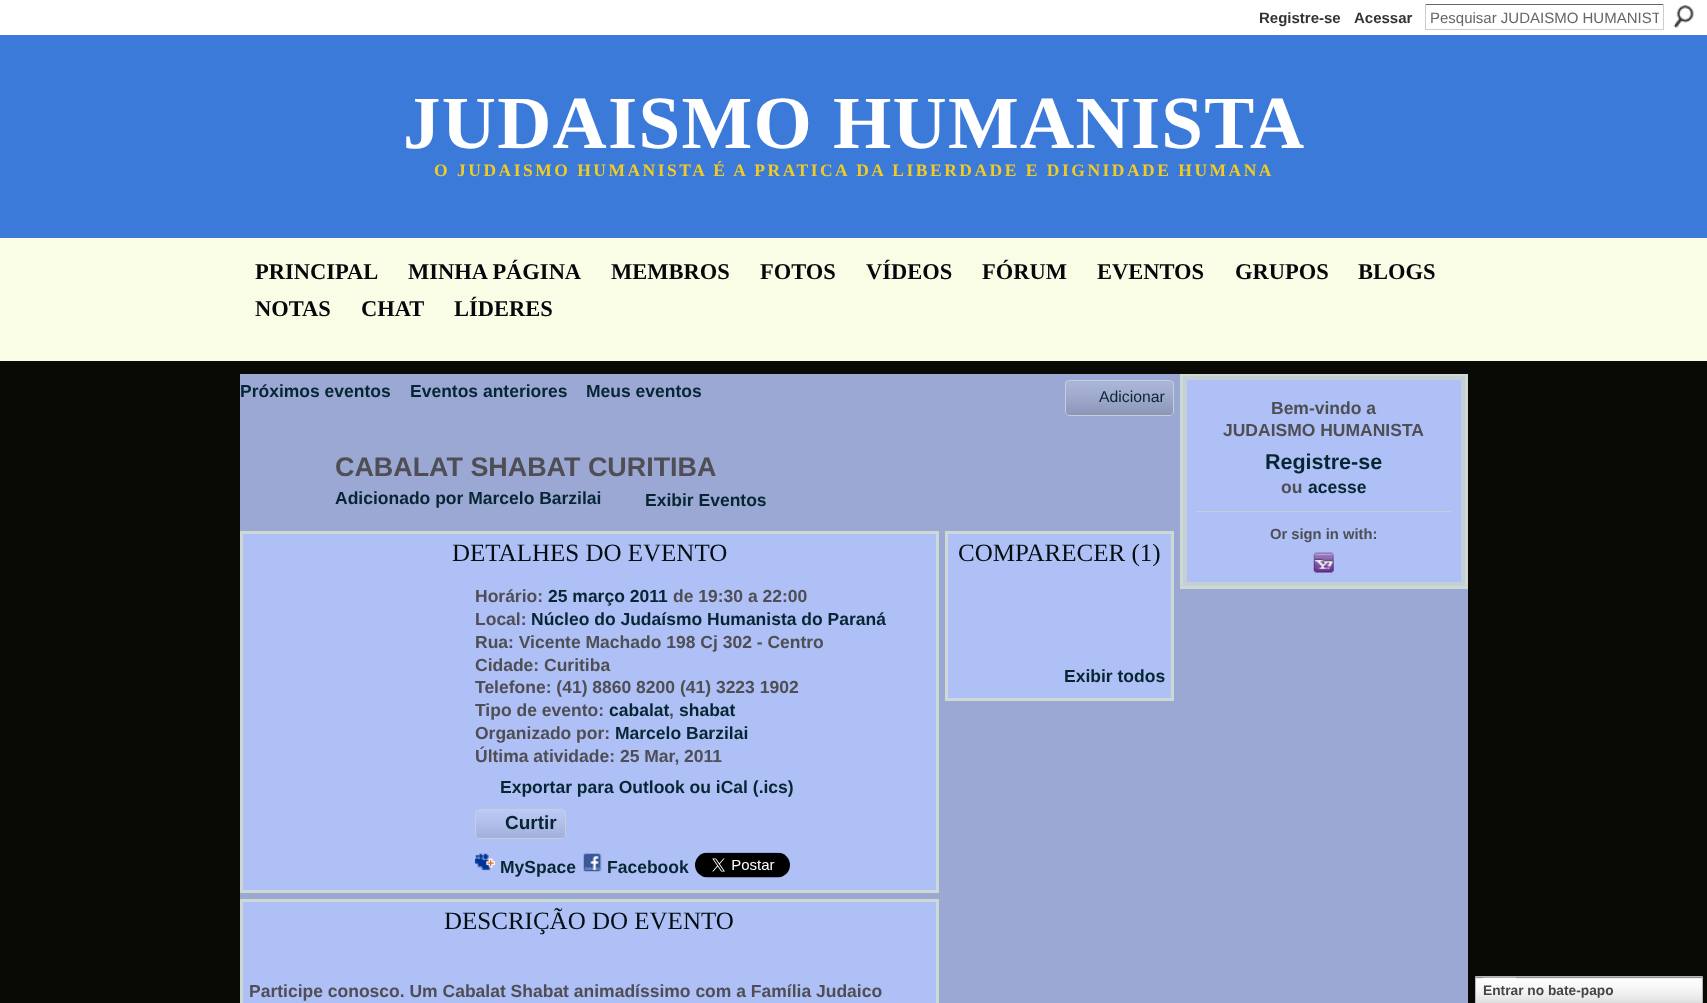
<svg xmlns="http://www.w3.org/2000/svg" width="1707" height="1003">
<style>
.a{font:bold 15px Liberation Sans;fill:#333}
.b{font:15px Liberation Sans;fill:#666}
.c{font:bold 75px Liberation Serif;letter-spacing:1.25px;fill:#fff}
.d{font:bold 17.5px Liberation Serif;letter-spacing:2.5px;fill:#f2cc22}
.e{font:bold 22.5px Liberation Serif;fill:#04080a}
.f{font:bold 17.5px Liberation Sans;fill:#072633}
.g{font:15.75px Liberation Sans;fill:#072633}
.h{font:bold 26.9px Liberation Sans;fill:#4e4e54}
.i{font:25px Liberation Serif;fill:#030d12}
.j{font:bold 17.5px Liberation Sans;fill:#4e4e54}
.k{font:bold 19px Liberation Sans;fill:#072633}
.l{font:bold 21.5px Liberation Sans;fill:#072633}
.m{font:bold 14.75px Liberation Sans;fill:#4e4e54}
.n{font:bold 13.75px Liberation Sans;fill:#454545}
</style>
<defs>
<clipPath id="clip1"><path d="M1430 9h229v17H1430z"/></clipPath>
</defs>
<rect width="100%" height="100%" fill="#fff"/>
<path fill="#666" d="M1425 4h239v1H1425z"/>
<path fill="#ccc" d="M1663 4h1v26H1663z"/>
<path fill="#ccc" d="M1425 29h239v1H1425z"/>
<path fill="#ccc" d="M1425 4h1v26H1425z"/>
<image href="1.png" x="1673" y="5" width="21" height="23"/>
<path fill="#3b7ad9" d="M0 35h1707v203H0z"/>
<path fill="#f9fde6" d="M0 238h1707v123H0z"/>
<path fill="#090a06" d="M0 361h1707v642H0z"/>
<path fill="#9ba8d4" d="M240 374h1228v629H240z"/>
<image href="2.png" x="1065" y="381" width="109" height="35"/>
<rect fill="none" stroke="#c4d0d5" x="1065.5" y="380.5" width="108" height="35" rx="3.5"/>
<path fill="#aec0f5" stroke="#cdd9d3" stroke-width="3" d="M241.5 532.5h696v359H241.5z"/>
<image href="3.png" x="475" y="810" width="91" height="29"/>
<rect fill="none" stroke="#c4d0d5" x="475.5" y="809.5" width="90" height="29" rx="3.5"/>
<image href="4.png" x="475" y="853" width="20" height="18"/>
<image href="5.png" x="583" y="853" width="19" height="19"/>
<image href="6.png" x="695" y="852" width="95" height="26"/>
<path fill="#aec0f5" stroke="#cdd9d3" stroke-width="3" d="M241.5 900.5h696v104H241.5z"/>
<path fill="#aec0f5" stroke="#cdd9d3" stroke-width="3" d="M946.5 532.5h226v167H946.5z"/>
<path fill="#aec0f5" d="M1187 380h274v202H1187z"/>
<path fill="none" stroke="#cdd9d3" stroke-width="3" d="M1181.5 375.5h285v212H1181.5z"/>
<path fill="none" stroke="#c4d0d5" stroke-width="4" d="M1185 378h278v206H1185z"/>
<path fill="#c4d0d5" d="M1196 511h255v1H1196z"/>
<image href="7.png" x="1313" y="552" width="21" height="21"/>
<image href="8.png" x="1476" y="977" width="226" height="26"/>
<path fill="none" stroke="#b7b7b7" d="M1475.5 976.5h227v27H1475.5z"/>
<image href="9.png" x="1482" y="977" width="35" height="2"/>
<text class="a" x="1259" y="23">Registre-se</text>
<text class="a" x="1354" y="23">Acessar</text>
<g clip-path="url(#clip1)">
<text class="b" x="1430" y="23">Pesquisar JUDAISMO HUMANIST</text>
</g>
<text class="c" x="403" y="148">JUDAISMO HUMANISTA</text>
<text class="d" x="434" y="176">O JUDAISMO HUMANISTA É A PRATICA DA LIBERDADE E DIGNIDADE HUMANA</text>
<text class="e" x="255" y="279">PRINCIPAL</text>
<text class="e" x="408" y="279">MINHA PÁGINA</text>
<text class="e" x="611" y="279">MEMBROS</text>
<text class="e" x="760" y="279">FOTOS</text>
<text class="e" x="866" y="279">VÍDEOS</text>
<text class="e" x="982" y="279">FÓRUM</text>
<text class="e" x="1097" y="279">EVENTOS</text>
<text class="e" x="1235" y="279">GRUPOS</text>
<text class="e" x="1358" y="279">BLOGS</text>
<text class="e" x="255" y="316">NOTAS</text>
<text class="e" x="361" y="316">CHAT</text>
<text class="e" x="454" y="316">LÍDERES</text>
<text class="f" x="240" y="397">Próximos eventos</text>
<text class="f" x="410" y="397">Eventos anteriores</text>
<text class="f" x="586" y="397">Meus eventos</text>
<text class="g" x="1099" y="402">Adicionar</text>
<text class="h" x="335" y="476">CABALAT SHABAT CURITIBA</text>
<text class="f" x="335" y="504">Adicionado por Marcelo Barzilai</text>
<text class="f" x="645" y="506">Exibir Eventos</text>
<text class="i" x="452" y="561">DETALHES DO EVENTO</text>
<text class="j" x="475" y="602">Horário:</text>
<text class="f" x="548" y="602">25 março 2011</text>
<text class="j" x="673" y="602">de 19:30 a 22:00</text>
<text class="j" x="475" y="625">Local:</text>
<text class="f" x="531" y="625">Núcleo do Judaísmo Humanista do Paraná</text>
<text class="j" x="475" y="648">Rua: Vicente Machado 198 Cj 302 - Centro</text>
<text class="j" x="475" y="671">Cidade: Curitiba</text>
<text class="j" x="475" y="693">Telefone: (41) 8860 8200 (41) 3223 1902</text>
<text class="j" x="475" y="716">Tipo de evento:</text>
<text class="f" x="609" y="716">cabalat</text>
<text class="j" x="669" y="716">,</text>
<text class="f" x="679" y="716">shabat</text>
<text class="j" x="475" y="739">Organizado por:</text>
<text class="f" x="615" y="739">Marcelo Barzilai</text>
<text class="j" x="475" y="762">Última atividade: 25 Mar, 2011</text>
<text class="f" x="500" y="793">Exportar para Outlook ou iCal (.ics)</text>
<text class="k" x="505" y="829">Curtir</text>
<text class="f" x="500" y="873">MySpace</text>
<text class="f" x="607" y="873">Facebook</text>
<text class="i" x="444" y="929">DESCRIÇÃO DO EVENTO</text>
<text class="j" x="249" y="997">Participe conosco. Um Cabalat Shabat animadíssimo com a Família Judaico</text>
<text class="i" x="958" y="561">COMPARECER (1)</text>
<text class="f" x="1064" y="682">Exibir todos</text>
<text class="j" x="1271" y="414">Bem-vindo a</text>
<text class="j" x="1223" y="436">JUDAISMO HUMANISTA</text>
<text class="l" x="1265" y="469">Registre-se</text>
<text class="j" x="1281" y="493">ou</text>
<text class="f" x="1308" y="493">acesse</text>
<text class="m" x="1270" y="539">Or sign in with:</text>
<text class="n" x="1483" y="995">Entrar no bate-papo</text>
</svg>
